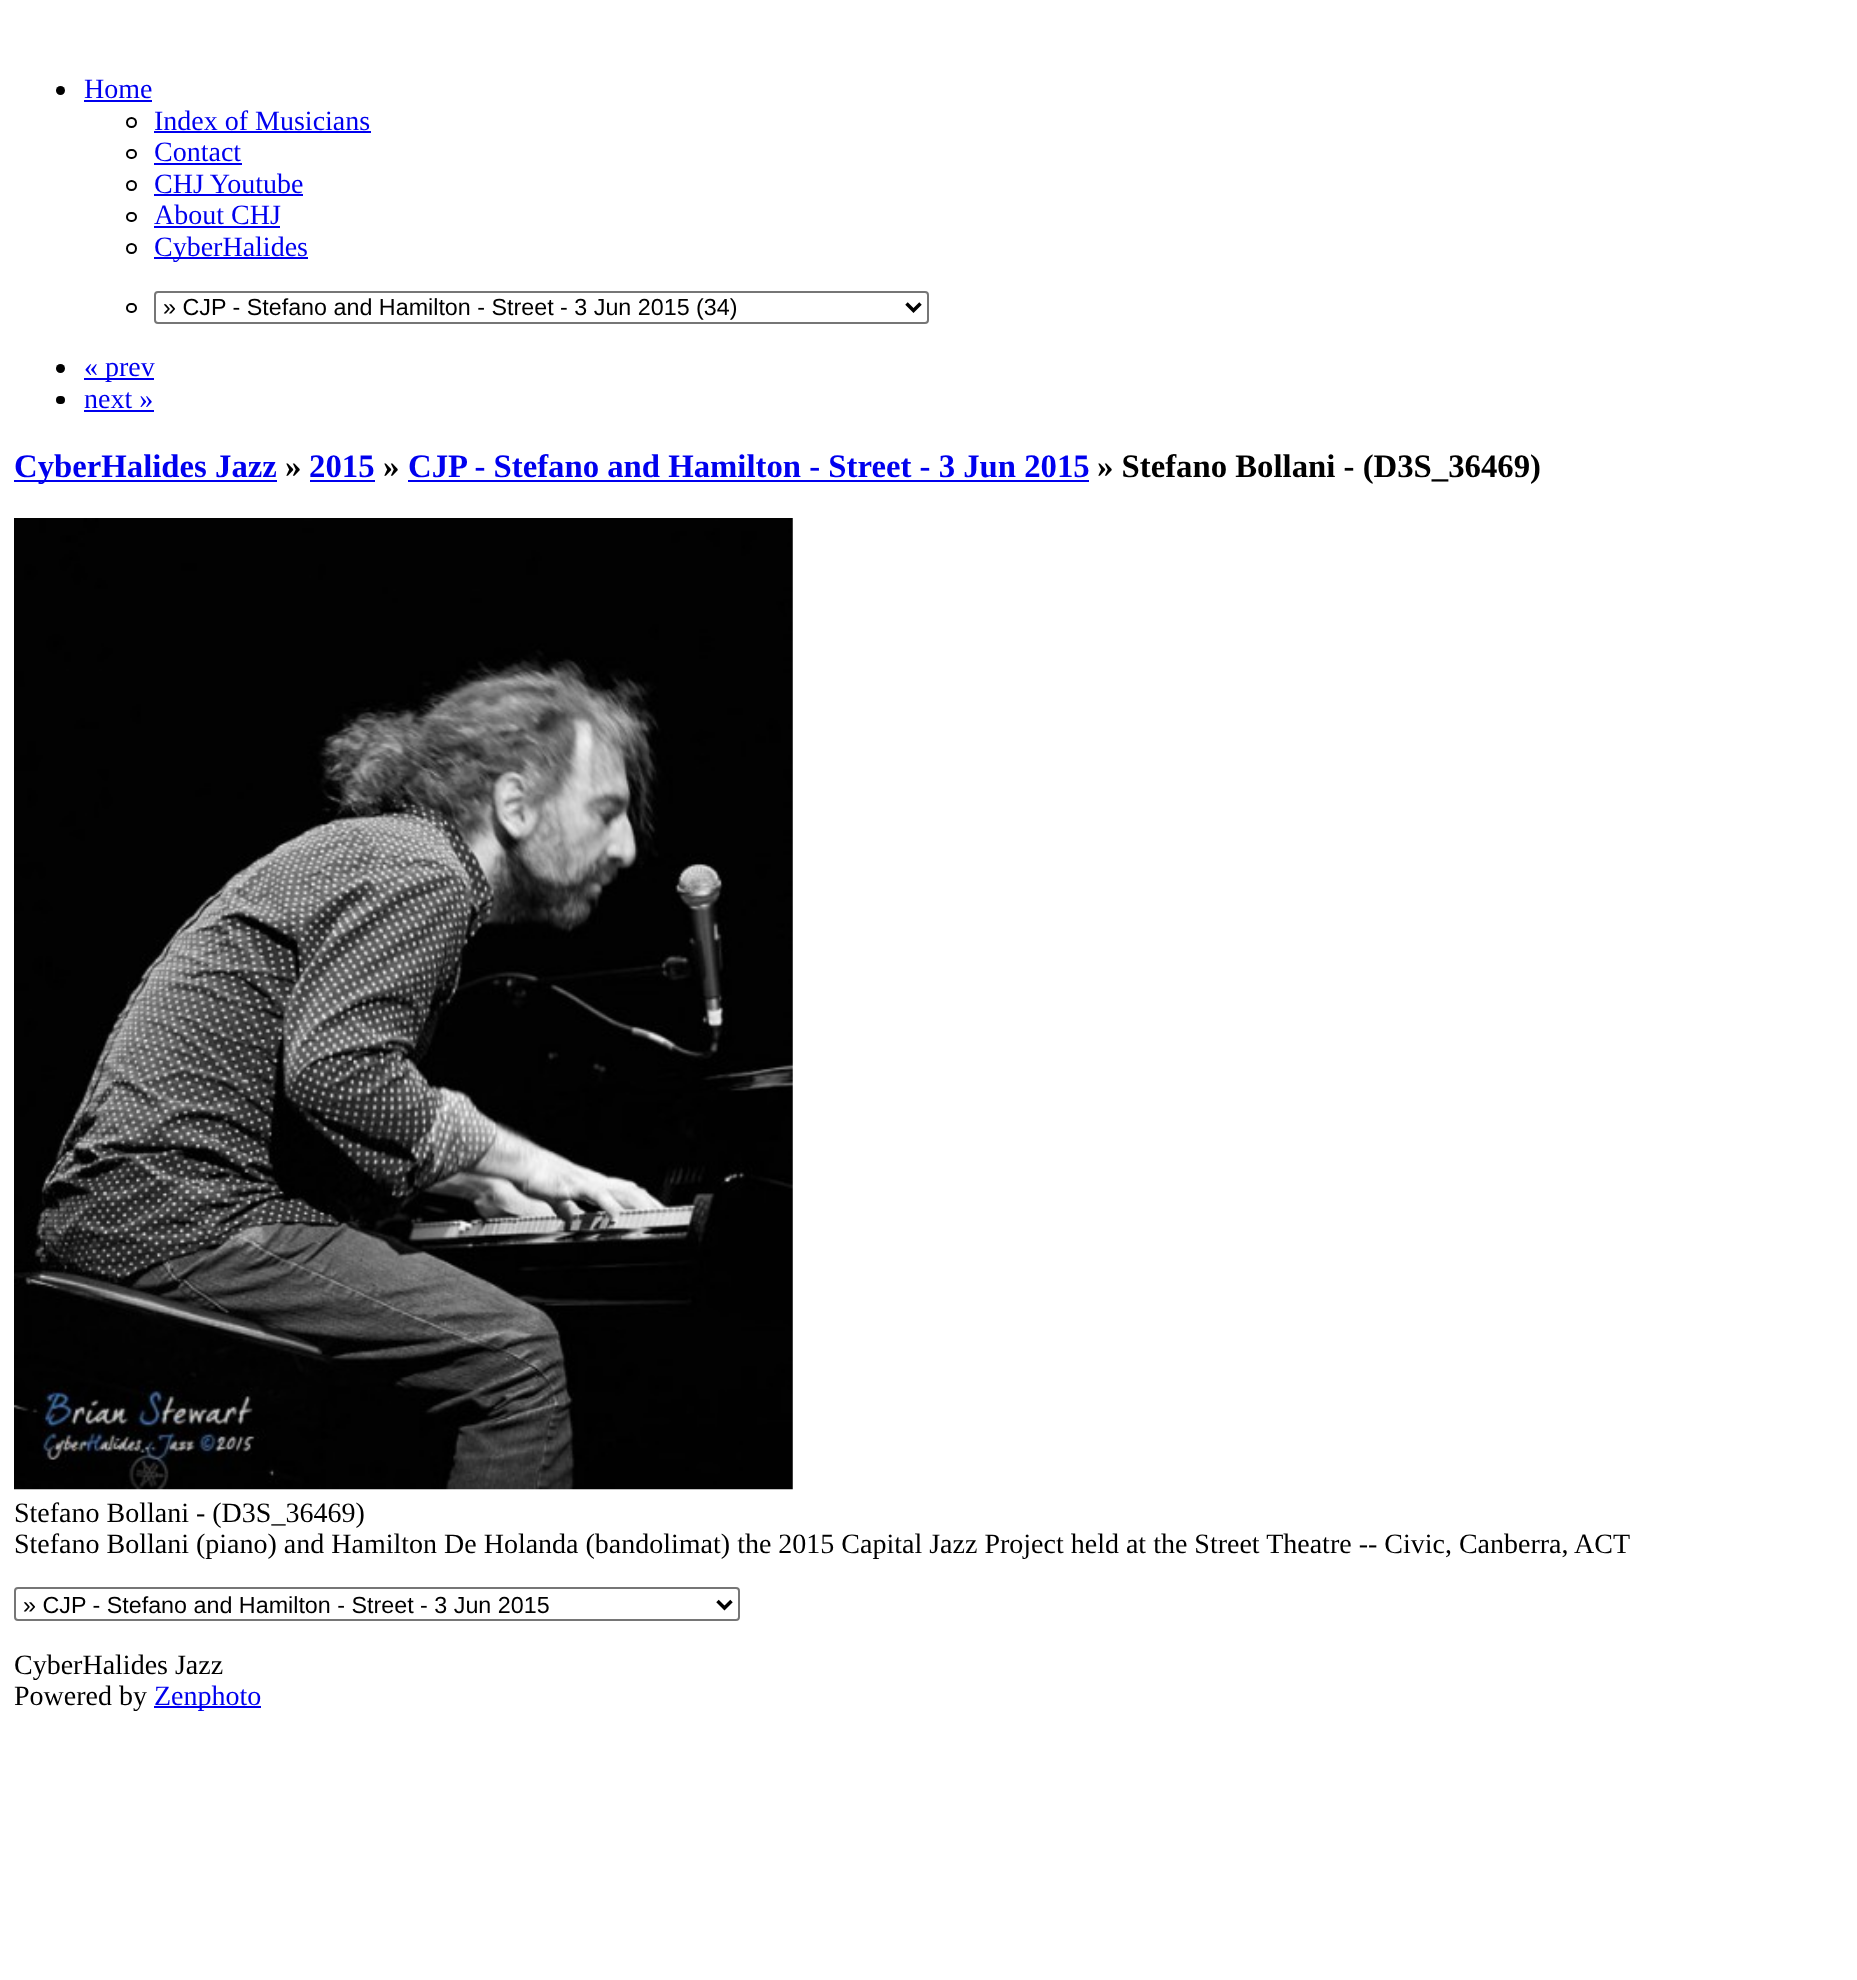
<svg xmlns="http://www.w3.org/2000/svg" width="1857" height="1980">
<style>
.a{font:28px Liberation Serif;fill:#00e}
.b{font:23.3px Liberation Sans;fill:#000}
.c{font:bold 32.75px Liberation Serif;fill:#00e}
.d{font:bold 32.75px Liberation Serif;fill:#000}
.e{font:28px Liberation Serif;fill:#000}
</style>
<rect width="100%" height="100%" fill="#fff"/>
<circle fill="#000" cx="60.5" cy="90.5" r="4.5"/>
<path fill="#00e" d="M84 100h68v2H84z"/>
<circle fill="none" stroke="#000" stroke-width="2" cx="131.5" cy="122.5" r="4.5"/>
<path fill="#00e" d="M154 131h217v2H154z"/>
<rect fill="none" stroke="#000" stroke-width="2" x="127" y="150" width="9" height="8" rx="4"/>
<path fill="#00e" d="M154 163h88v2H154z"/>
<circle fill="none" stroke="#000" stroke-width="2" cx="131.5" cy="185.5" r="4.5"/>
<path fill="#00e" d="M154 194h149v2H154z"/>
<rect fill="none" stroke="#000" stroke-width="2" x="127" y="213" width="9" height="8" rx="4"/>
<path fill="#00e" d="M154 226h126v2H154z"/>
<circle fill="none" stroke="#000" stroke-width="2" cx="131.5" cy="248.5" r="4.5"/>
<path fill="#00e" d="M154 257h154v2H154z"/>
<rect fill="none" stroke="#000" stroke-width="2" x="127" y="304" width="9" height="8" rx="4"/>
<rect fill="none" stroke="#767676" stroke-width="2" x="155" y="292" width="773" height="31" rx="3"/>
<path fill="none" stroke="#000" stroke-width="3.5" d="M906.5 303.5l7 7l7-7"/>
<circle fill="#000" cx="60.5" cy="368.5" r="4.5"/>
<path fill="#00e" d="M84 378h70v2H84z"/>
<rect fill="#000" x="56" y="396" width="9" height="8" rx="4"/>
<path fill="#00e" d="M84 410h70v2H84z"/>
<path fill="#00e" d="M14 480h263v2H14z"/>
<path fill="#00e" d="M310 480h65v2H310z"/>
<path fill="#00e" d="M408 480h681v2H408z"/>
<image href="1.png" x="14" y="518" width="779" height="972"/>
<rect fill="none" stroke="#767676" stroke-width="2" x="15" y="1588" width="724" height="32" rx="3"/>
<path fill="none" stroke="#000" stroke-width="3.5" d="M717.5 1601l7 7l7-7"/>
<path fill="#00e" d="M154 1706h107v2H154z"/>
<text class="a" x="84" y="98">Home</text>
<text class="a" x="154" y="130">Index of Musicians</text>
<text class="a" x="154" y="161">Contact</text>
<text class="a" x="154" y="193">CHJ Youtube</text>
<text class="a" x="154" y="224">About CHJ</text>
<text class="a" x="154" y="256">CyberHalides</text>
<text class="b" x="163" y="315">» CJP - Stefano and Hamilton - Street - 3 Jun 2015 (34)</text>
<text class="a" x="84" y="376">« prev</text>
<text class="a" x="84" y="408">next »</text>
<text class="c" x="14" y="477">CyberHalides Jazz</text>
<text class="d" x="285" y="477">»</text>
<text class="c" x="309" y="477">2015</text>
<text class="d" x="383" y="477">»</text>
<text class="c" x="408" y="477">CJP - Stefano and Hamilton - Street - 3 Jun 2015</text>
<text class="d" x="1097" y="477">» Stefano Bollani - (D3S_36469)</text>
<text class="e" x="14" y="1522">Stefano Bollani - (D3S_36469)</text>
<text class="e" x="14" y="1553">Stefano Bollani (piano) and Hamilton De Holanda (bandolimat) the 2015 Capital Jazz Project held at the Street Theatre -- Civic, Canberra, ACT</text>
<text class="b" x="23" y="1613">» CJP - Stefano and Hamilton - Street - 3 Jun 2015</text>
<text class="e" x="14" y="1674">CyberHalides Jazz</text>
<text class="e" x="14" y="1705">Powered by</text>
<text class="a" x="154" y="1705">Zenphoto</text>
</svg>
